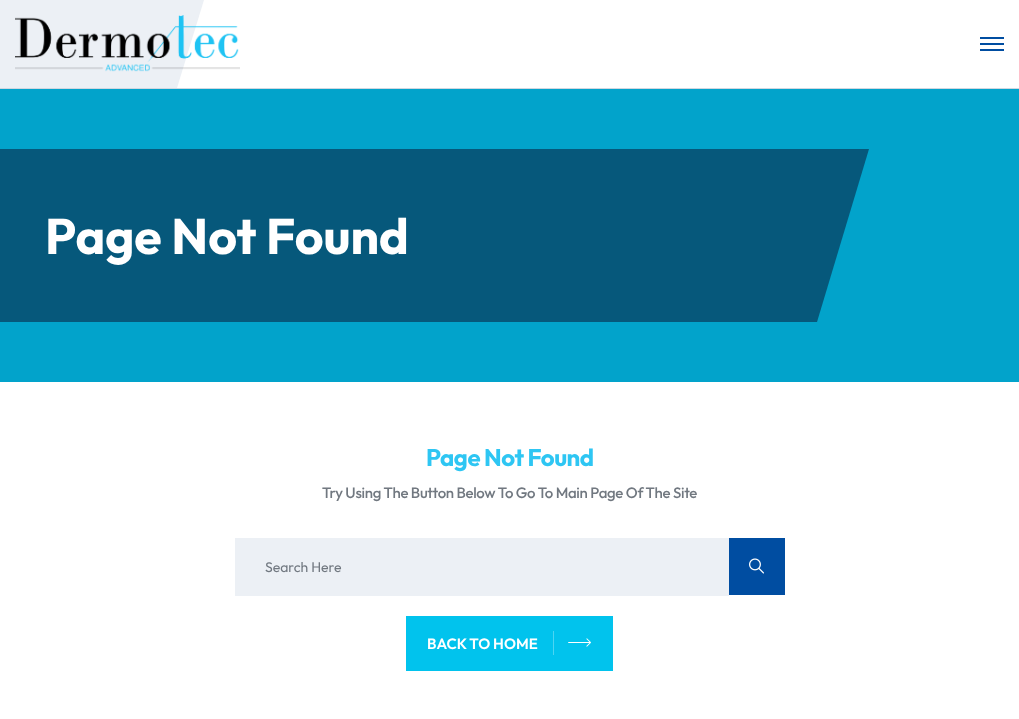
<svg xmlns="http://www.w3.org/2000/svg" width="1019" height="719">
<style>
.a{font:bold 50px Outfit;fill:#fff}
.b{font:bold 24px Outfit;letter-spacing:-0.5px;fill:#2ec6f3}
.c{font:500 15px Outfit;letter-spacing:-0.3px;fill:#717880}
.d{font:14px Outfit;fill:#717880}
.e{font:600 15px Outfit;fill:#fff}
</style>
<rect width="100%" height="100%" fill="#fff"/>
<path fill="#cfd7e0" d="M0 88h1019v1H0z"/>
<path fill="#ecf0f5" d="M0 0v88h177l27-88z"/>
<image href="1.png" x="15" y="15" width="225" height="57"/>
<path fill="#004da1" d="M980 37h24v2H980z"/>
<path fill="#004da1" d="M980 43h24v2H980z"/>
<path fill="#004da1" d="M980 49h24v2H980z"/>
<path fill="#02a3cb" d="M0 89h1019v293H0z"/>
<path fill="#06587b" d="M0 149v173h817l52-173z"/>
<path fill="#ecf0f5" d="M235 538h494v58H235z"/>
<path fill="#004da1" d="M729 538h56v57H729z"/>
<image href="2.png" x="749" y="558" width="15" height="16"/>
<path fill="#01c3ed" d="M406 616h207v55H406z"/>
<path fill="#4dd5f2" d="M553 631h1v24H553z"/>
<image href="3.png" x="568" y="638" width="23" height="9"/>
<text class="a" x="45" y="254">Page Not Found</text>
<text class="b" x="426" y="466">Page Not Found</text>
<text class="c" x="322" y="498">Try Using The Button Below To Go To Main Page Of The Site</text>
<text class="d" x="265" y="572">Search Here</text>
<text class="e" x="427" y="649">BACK TO HOME</text>
</svg>
